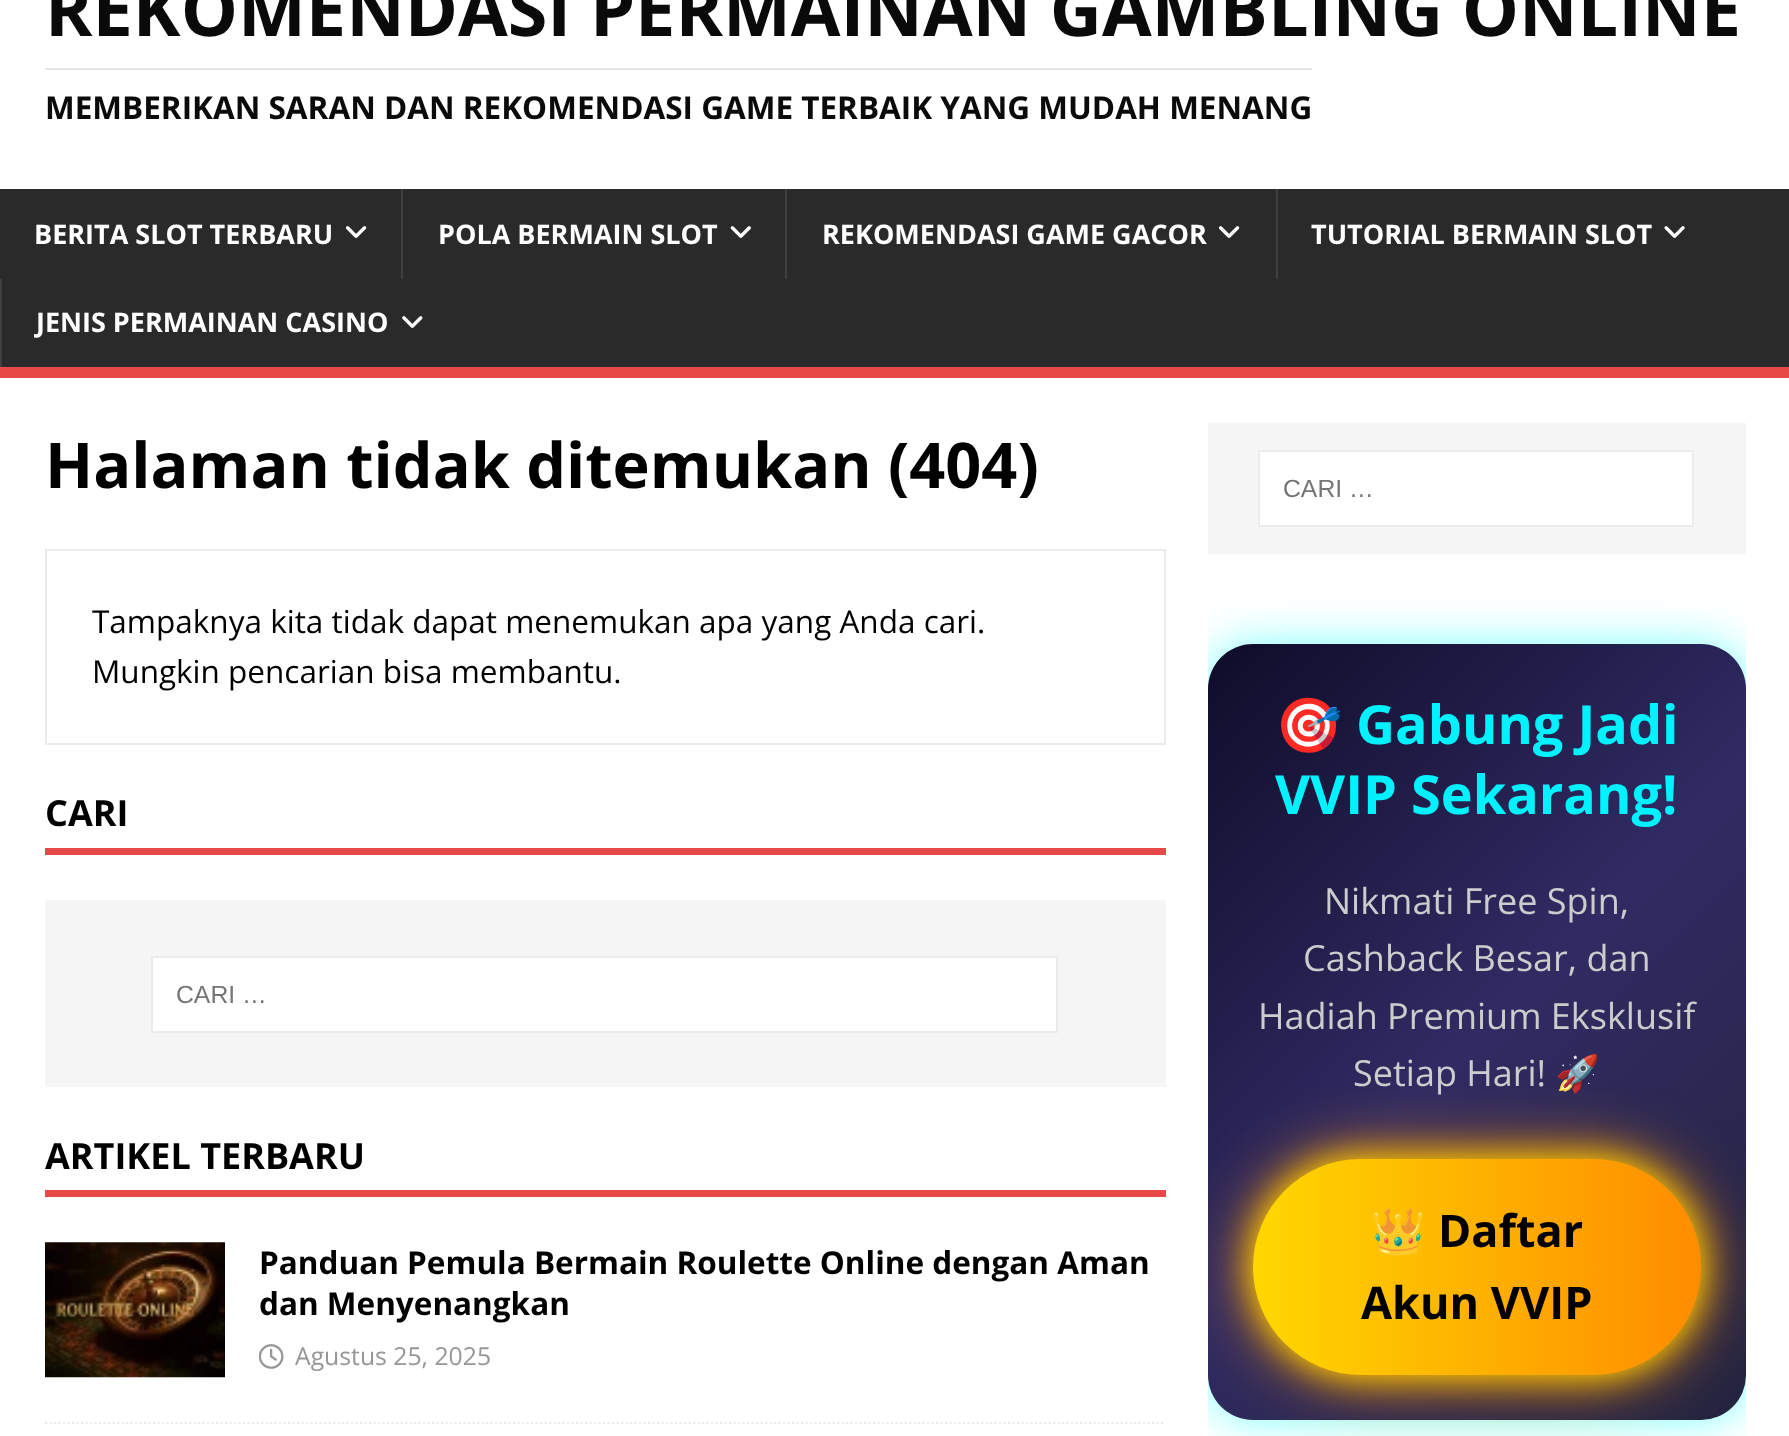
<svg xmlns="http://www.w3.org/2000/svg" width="1789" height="1436">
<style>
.a{font:bold 72px Open Sans;fill:#0a0a0a}
.b{font:bold 31.5px Open Sans;fill:#0a0a0a}
.c{font:bold 27px Open Sans;fill:#fff}
.d{font:bold 63px Open Sans;fill:#000}
.e{font:31.5px Open Sans;fill:#000}
.f{font:bold 36px Open Sans;fill:#000}
.g{font:24.75px Liberation Sans;fill:#757575}
.h{font:bold 31.5px Open Sans;fill:#000}
.i{font:24.75px Open Sans;fill:#979797}
.j{font:bold 54px Noto Color Emoji;fill:#00f2fe}
.k{font:bold 54px Open Sans;fill:#00f2fe}
.l{font:36px Open Sans;fill:#ccc}
.m{font:36px Noto Color Emoji;fill:#ccc}
.n{font:bold 45px Noto Color Emoji;fill:#000}
.o{font:bold 45px Open Sans;fill:#000}
</style>
<defs>
<clipPath id="clip1"><path d="M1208 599h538v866H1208z"/></clipPath>
<linearGradient id="g1" gradientUnits="userSpaceOnUse" x1="1149" y1="703" x2="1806" y2="1360"><stop offset="0" stop-color="#0f0c29"/><stop offset="0.5" stop-color="#302b63"/><stop offset="1" stop-color="#24243e"/></linearGradient>
<linearGradient id="g2" gradientUnits="userSpaceOnUse" x1="1253" y1="1267" x2="1701" y2="1267"><stop offset="0" stop-color="#ffd700"/><stop offset="1" stop-color="#ff8c00"/></linearGradient>
</defs>
<rect width="100%" height="100%" fill="#fff"/>
<path fill="#e5e5e5" d="M45 68h1267v2H45z"/>
<path fill="#2a2a2a" d="M0 189h1789v178H0z"/>
<path fill="#e64946" d="M0 367h1789v11H0z"/>
<image href="1.png" x="346" y="226" width="21" height="12"/>
<path fill="#3f3f3f" d="M401 189h2v90H401z"/>
<image href="2.png" x="730" y="226" width="21" height="12"/>
<path fill="#3f3f3f" d="M785 189h2v90H785z"/>
<image href="1.png" x="1219" y="226" width="21" height="12"/>
<path fill="#3f3f3f" d="M1276 189h2v90H1276z"/>
<image href="3.png" x="1664" y="226" width="21" height="12"/>
<path fill="#3f3f3f" d="M0 279h2v88H0z"/>
<image href="4.png" x="402" y="316" width="21" height="12"/>
<path fill="#f5f5f5" d="M45 900h1121v187H45z"/>
<path fill="none" stroke="#ebebeb" stroke-width="2.2" stroke-dasharray="2.25 2.25" d="M45 1423h1120.5"/>
<g clip-path="url(#clip1)">
<rect fill="#00ffff80" filter="blur(22.5px)" x="1208" y="644" width="538" height="776" rx="45"/>
</g>
<path fill="none" stroke="#ebebeb" stroke-width="2" d="M46 550h1119v194H46z"/>
<path fill="#e64946" d="M45 848h1121v7H45z"/>
<path fill="#fff" stroke="#ebebeb" stroke-width="2" d="M152 957h905v75H152z"/>
<rect fill="url(#g1)" x="1208" y="644" width="538" height="776" rx="45"/>
<g clip-path="url(#clip1)">
<rect fill="#ff8c00" filter="blur(34px)" x="1253" y="1159" width="448" height="216" rx="108"/>
</g>
<path fill="#e64946" d="M45 1190h1121v7H45z"/>
<image href="5.png" x="45" y="1242" width="180" height="136"/>
<image href="6.png" x="259" y="1344" width="25" height="25"/>
<path fill="#f5f5f5" d="M1208 423h538v131H1208z"/>
<path fill="#fff" stroke="#ebebeb" stroke-width="2" d="M1259 451h434v75H1259z"/>
<rect fill="#ffd700" filter="blur(17px)" x="1253" y="1159" width="448" height="216" rx="108"/>
<rect fill="url(#g2)" x="1253" y="1159" width="448" height="216" rx="108"/>
<text class="a" x="45" y="36">REKOMENDASI PERMAINAN GAMBLING ONLINE</text>
<text class="b" x="45" y="119">MEMBERIKAN SARAN DAN REKOMENDASI GAME TERBAIK YANG MUDAH MENANG</text>
<text class="c" x="34" y="244">BERITA SLOT TERBARU</text>
<text class="c" x="438" y="244">POLA BERMAIN SLOT</text>
<text class="c" x="822" y="244">REKOMENDASI GAME GACOR</text>
<text class="c" x="1311" y="244">TUTORIAL BERMAIN SLOT</text>
<text class="c" x="36" y="332">JENIS PERMAINAN CASINO</text>
<text class="d" x="45" y="488">Halaman tidak ditemukan (404)</text>
<text class="e" x="92" y="633">Tampaknya kita tidak dapat menemukan apa yang Anda cari.</text>
<text class="e" x="92" y="683">Mungkin pencarian bisa membantu.</text>
<text class="f" x="45" y="826">CARI</text>
<text class="g" x="176" y="1003">CARI …</text>
<text class="f" x="45" y="1169">ARTIKEL TERBARU</text>
<text class="h" x="259" y="1274">Panduan Pemula Bermain Roulette Online dengan Aman</text>
<text class="h" x="259" y="1315">dan Menyenangkan</text>
<text class="i" x="295" y="1365">Agustus 25, 2025</text>
<text class="g" x="1283" y="497">CARI …</text>
<text class="j" x="1275" y="744">🎯</text>
<text class="k" x="1356" y="744">Gabung Jadi</text>
<text class="k" x="1275" y="814">VVIP Sekarang!</text>
<text class="l" x="1324" y="914">Nikmati Free Spin,</text>
<text class="l" x="1303" y="971">Cashback Besar, dan</text>
<text class="l" x="1258" y="1029">Hadiah Premium Eksklusif</text>
<text class="l" x="1353" y="1086">Setiap Hari!</text>
<text class="m" x="1555" y="1086">🚀</text>
<text class="n" x="1370" y="1247">👑</text>
<text class="o" x="1438" y="1247">Daftar</text>
<text class="o" x="1361" y="1319">Akun VVIP</text>
</svg>
